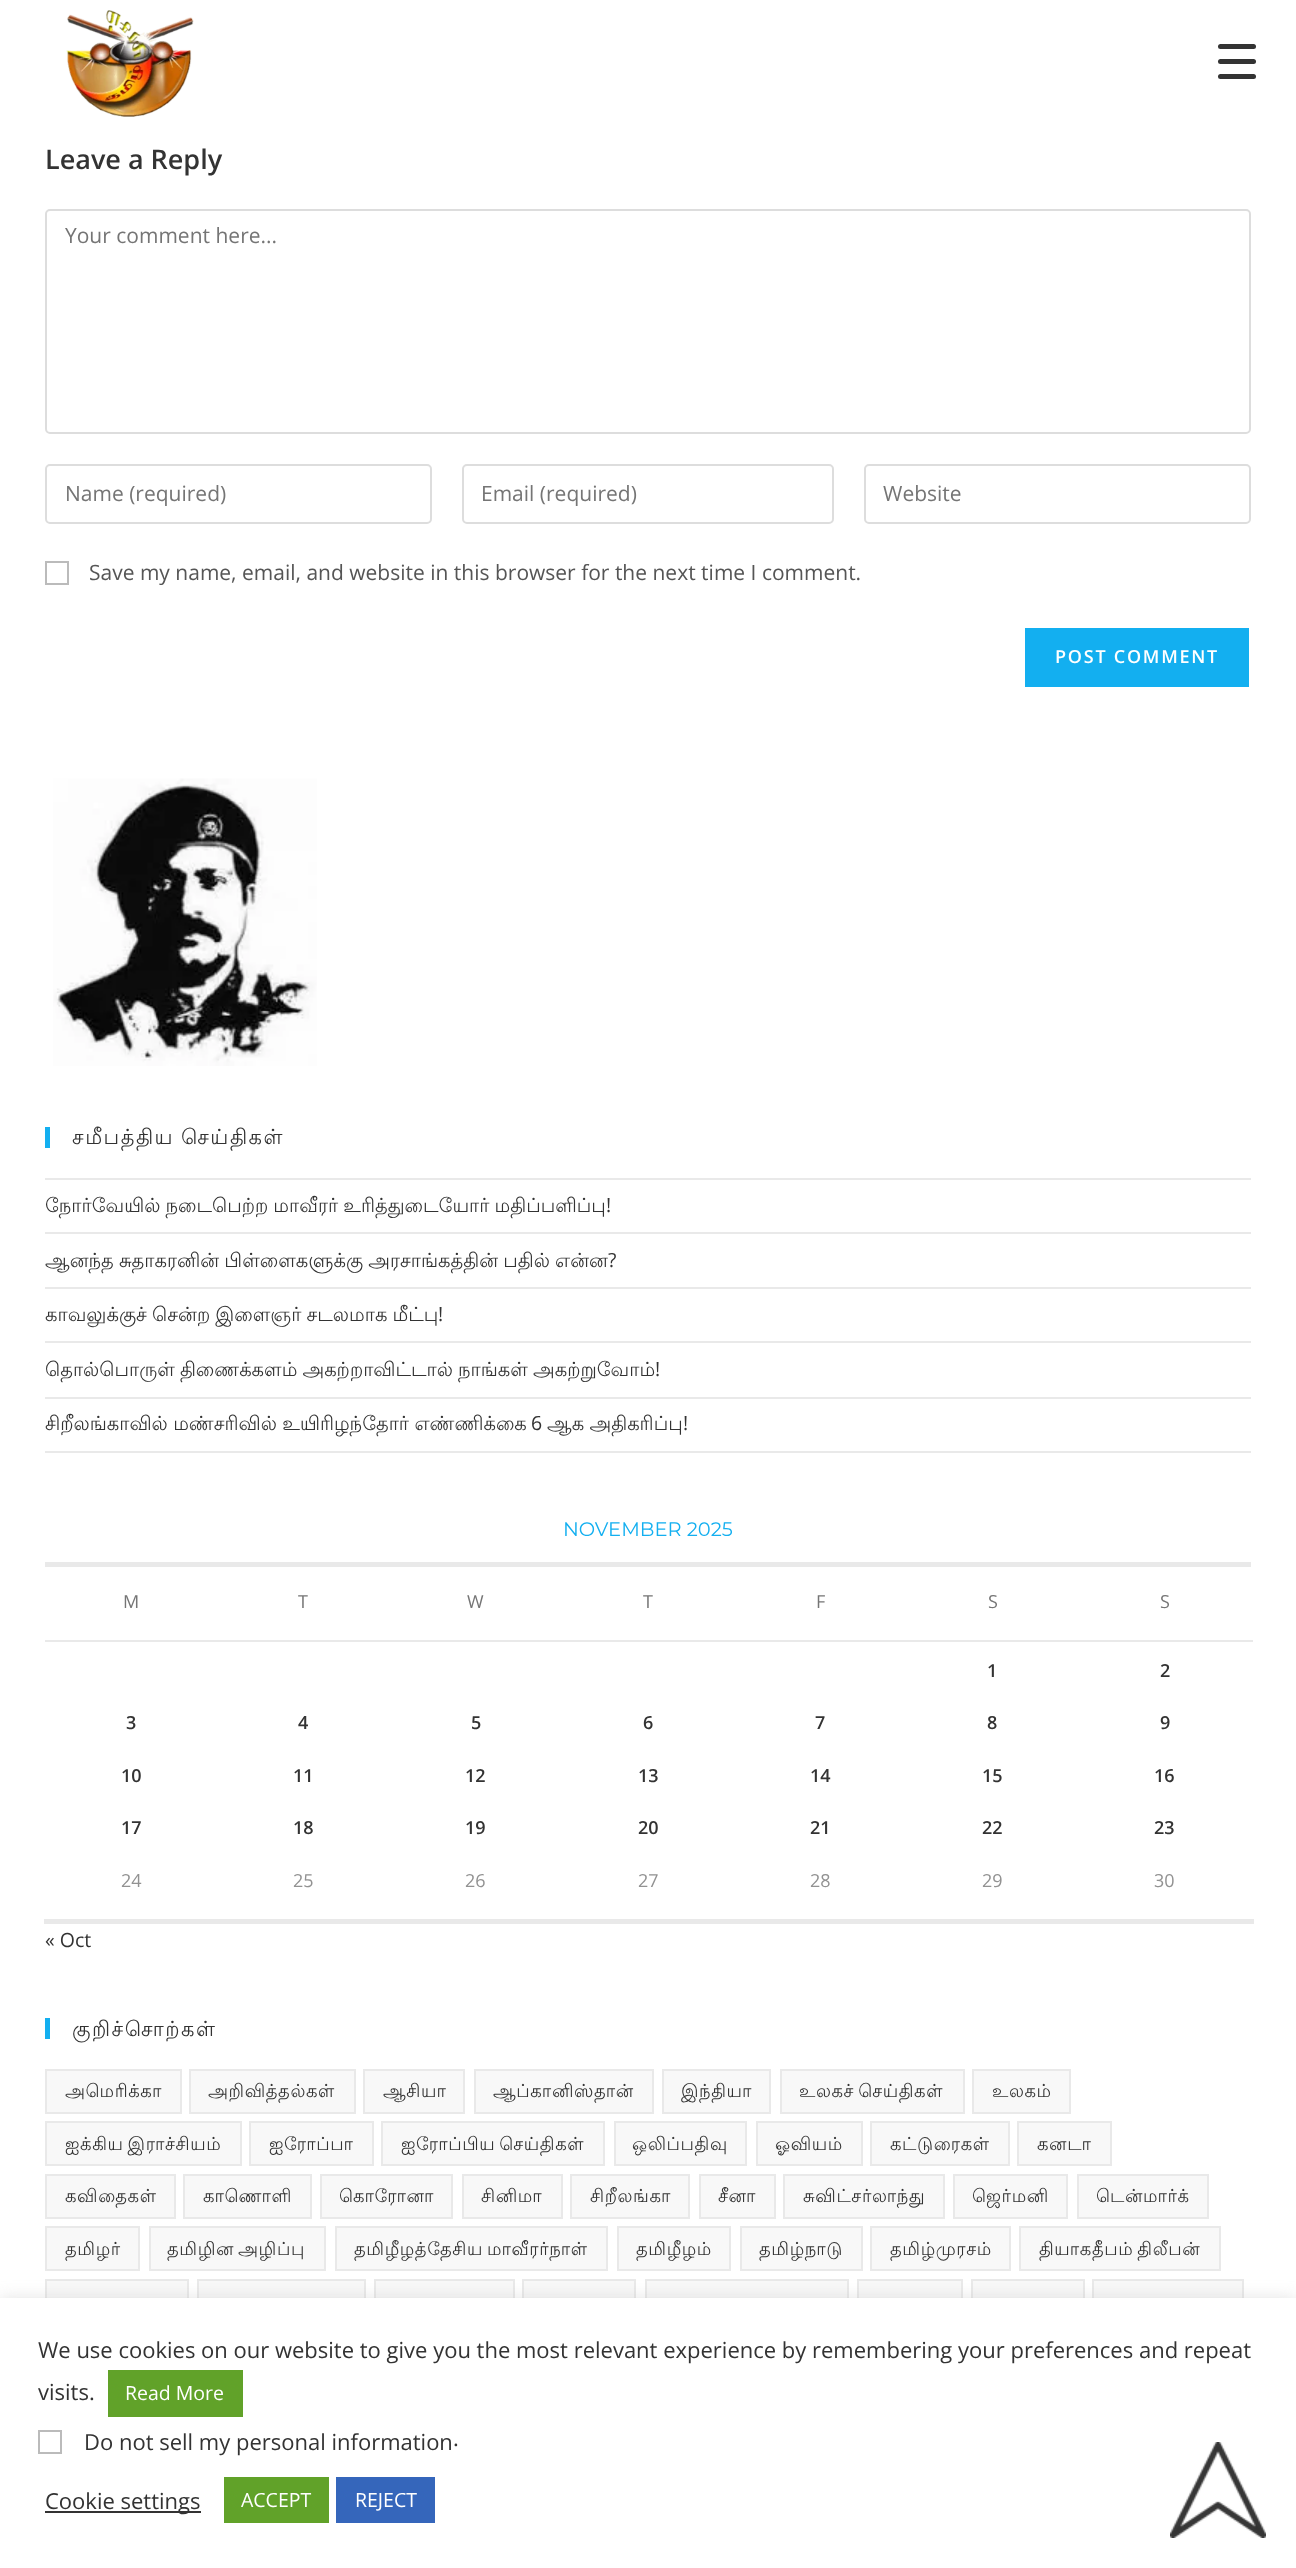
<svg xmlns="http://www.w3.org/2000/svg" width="1296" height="2568">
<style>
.a{font:600 27px Open Sans;fill:#333}
.b{font:21px Open Sans;fill:#757575}
.c{font:21px Open Sans;fill:#555}
.d{font:600 18px Open Sans;letter-spacing:1.75px;fill:#fff}
.e{font:21px Lohit Tamil;letter-spacing:1.5px;fill:#333}
.f{font:19.5px Lohit Tamil;fill:#333}
.g{font:19.5px Open Sans;fill:#333}
.h{font:19.5px Montserrat;fill:#13aff0}
.i{font:18px Open Sans;fill:#757575}
.j{font:600 18px Open Sans;fill:#333}
.k{font:18px Open Sans;fill:#929292}
.l{font:18px Lohit Tamil;letter-spacing:0.6px;fill:#333}
.m{font:22px Open Sans;fill:#333}
.n{font:19.5px Open Sans;fill:#fff}
</style>
<rect width="100%" height="100%" fill="#fff"/>
<rect fill="#333" x="1218" y="59" width="38" height="5" rx="2.5"/>
<rect fill="#333" x="1218" y="44" width="38" height="5" rx="2.5"/>
<rect fill="#333" x="1218" y="74" width="38" height="5" rx="2.5"/>
<image href="1.png" x="66" y="10" width="128" height="107"/>
<rect fill="none" stroke="#ddd" stroke-width="2" x="46" y="210" width="1204" height="223" rx="4"/>
<rect fill="none" stroke="#ddd" stroke-width="2" x="46" y="465" width="385" height="58" rx="4"/>
<rect fill="none" stroke="#ddd" stroke-width="2" x="463" y="465" width="370" height="58" rx="4"/>
<rect fill="none" stroke="#ddd" stroke-width="2" x="865" y="465" width="385" height="58" rx="4"/>
<path fill="none" stroke="#bbb" stroke-width="2" d="M46 562h22v22H46z"/>
<path fill="#13aff0" d="M1025 628h224v59H1025z"/>
<image href="2.png" x="53" y="778" width="264" height="288"/>
<path fill="#13aff0" d="M45 1127h5v21H45z"/>
<path fill="#e9e9e9" d="M45 1178h1206v2H45z"/>
<path fill="#e9e9e9" d="M45 1232h1206v2H45z"/>
<path fill="#e9e9e9" d="M45 1287h1206v2H45z"/>
<path fill="#e9e9e9" d="M45 1341h1206v2H45z"/>
<path fill="#e9e9e9" d="M45 1397h1206v2H45z"/>
<path fill="#e9e9e9" d="M45 1451h1206v2H45z"/>
<path fill="#e9e9e9" d="M45 1562h1206v5H45z"/>
<path fill="#e9e9e9" d="M45 1640h1208v2H45z"/>
<path fill="#e9e9e9" d="M44 1919h1210v5H44z"/>
<path fill="#13aff0" d="M45 2018h5v21H45z"/>
<path fill="#f8f8f8" stroke="#e9e9e9" stroke-width="2" d="M46 2070h135v43H46z"/>
<path fill="#f8f8f8" stroke="#e9e9e9" stroke-width="2" d="M190 2070h165v43H190z"/>
<path fill="#f8f8f8" stroke="#e9e9e9" stroke-width="2" d="M364 2070h100v43H364z"/>
<path fill="#f8f8f8" stroke="#e9e9e9" stroke-width="2" d="M475 2070h178v43H475z"/>
<path fill="#f8f8f8" stroke="#e9e9e9" stroke-width="2" d="M663 2070h107v43H663z"/>
<path fill="#f8f8f8" stroke="#e9e9e9" stroke-width="2" d="M781 2070h183v43H781z"/>
<path fill="#f8f8f8" stroke="#e9e9e9" stroke-width="2" d="M973 2070h97v43H973z"/>
<path fill="#f8f8f8" stroke="#e9e9e9" stroke-width="2" d="M46 2122h195v43H46z"/>
<path fill="#f8f8f8" stroke="#e9e9e9" stroke-width="2" d="M250 2122h123v43H250z"/>
<path fill="#f8f8f8" stroke="#e9e9e9" stroke-width="2" d="M382 2122h222v43H382z"/>
<path fill="#f8f8f8" stroke="#e9e9e9" stroke-width="2" d="M615 2122h131v43H615z"/>
<path fill="#f8f8f8" stroke="#e9e9e9" stroke-width="2" d="M757 2122h105v43H757z"/>
<path fill="#f8f8f8" stroke="#e9e9e9" stroke-width="2" d="M871 2122h138v43H871z"/>
<path fill="#f8f8f8" stroke="#e9e9e9" stroke-width="2" d="M1018 2122h93v43H1018z"/>
<path fill="#f8f8f8" stroke="#e9e9e9" stroke-width="2" d="M46 2175h129v43H46z"/>
<path fill="#f8f8f8" stroke="#e9e9e9" stroke-width="2" d="M184 2175h127v43H184z"/>
<path fill="#f8f8f8" stroke="#e9e9e9" stroke-width="2" d="M321 2175h131v43H321z"/>
<path fill="#f8f8f8" stroke="#e9e9e9" stroke-width="2" d="M463 2175h99v43H463z"/>
<path fill="#f8f8f8" stroke="#e9e9e9" stroke-width="2" d="M571 2175h118v43H571z"/>
<path fill="#f8f8f8" stroke="#e9e9e9" stroke-width="2" d="M700 2175h75v43H700z"/>
<path fill="#f8f8f8" stroke="#e9e9e9" stroke-width="2" d="M784 2175h160v43H784z"/>
<path fill="#f8f8f8" stroke="#e9e9e9" stroke-width="2" d="M954 2175h113v43H954z"/>
<path fill="#f8f8f8" stroke="#e9e9e9" stroke-width="2" d="M1078 2175h130v43H1078z"/>
<path fill="#f8f8f8" stroke="#e9e9e9" stroke-width="2" d="M46 2227h93v43H46z"/>
<path fill="#f8f8f8" stroke="#e9e9e9" stroke-width="2" d="M150 2227h175v43H150z"/>
<path fill="#f8f8f8" stroke="#e9e9e9" stroke-width="2" d="M336 2227h271v43H336z"/>
<path fill="#f8f8f8" stroke="#e9e9e9" stroke-width="2" d="M618 2227h112v43H618z"/>
<path fill="#f8f8f8" stroke="#e9e9e9" stroke-width="2" d="M741 2227h121v43H741z"/>
<path fill="#f8f8f8" stroke="#e9e9e9" stroke-width="2" d="M871 2227h139v43H871z"/>
<path fill="#f8f8f8" stroke="#e9e9e9" stroke-width="2" d="M1020 2227h200v43H1020z"/>
<path fill="#f8f8f8" d="M47 2281h140v17H47z"/>
<path fill="none" stroke="#e9e9e9" stroke-width="2" d="M46 2280h142v43H46z"/>
<path fill="#f8f8f8" d="M199 2281h165v17H199z"/>
<path fill="none" stroke="#e9e9e9" stroke-width="2" d="M198 2280h167v43H198z"/>
<path fill="#f8f8f8" d="M376 2281h137v17H376z"/>
<path fill="none" stroke="#e9e9e9" stroke-width="2" d="M375 2280h139v43H375z"/>
<path fill="#f8f8f8" d="M524 2281h110v17H524z"/>
<path fill="none" stroke="#e9e9e9" stroke-width="2" d="M523 2280h112v43H523z"/>
<path fill="#f8f8f8" d="M647 2281h200v17H647z"/>
<path fill="none" stroke="#e9e9e9" stroke-width="2" d="M646 2280h202v43H646z"/>
<path fill="#f8f8f8" d="M859 2281h102v17H859z"/>
<path fill="none" stroke="#e9e9e9" stroke-width="2" d="M858 2280h104v43H858z"/>
<path fill="#f8f8f8" d="M973 2281h110v17H973z"/>
<path fill="none" stroke="#e9e9e9" stroke-width="2" d="M972 2280h112v43H972z"/>
<path fill="#f8f8f8" d="M1094 2281h148v17H1094z"/>
<path fill="none" stroke="#e9e9e9" stroke-width="2" d="M1093 2280h150v43H1093z"/>
<path fill="#acabab4d" filter="blur(7.5px)" d="M0 2297h1296v270H0z"/>
<path fill="#fff" d="M0 2298h1296v270H0z"/>
<path fill="#61a229" d="M108 2370h135v47H108z"/>
<path fill="none" stroke="#bbb" stroke-width="2" d="M39 2431h22v22H39z"/>
<path fill="#333" d="M45 2511h156v2H45z"/>
<path fill="#61a229" d="M224 2477h105v46H224z"/>
<path fill="#3566bb" d="M336 2477h99v46H336z"/>
<image href="3.png" x="1170" y="2442" width="96" height="96"/>
<text class="a" x="45" y="169">Leave a Reply</text>
<text class="b" x="65" y="243">Your comment here...</text>
<text class="b" x="65" y="501">Name (required)</text>
<text class="b" x="481" y="501">Email (required)</text>
<text class="b" x="883" y="501">Website</text>
<text class="c" x="89" y="580">Save my name, email, and website in this browser for the next time I comment.</text>
<text class="d" x="1055" y="663">POST COMMENT</text>
<text class="e" x="72" y="1144" word-spacing="-1">சமீபத்திய செய்திகள்</text>
<text class="f" x="45" y="1212" word-spacing="-0.75">நோர்வேயில் நடைபெற்ற மாவீரர் உரித்துடையோர் மதிப்பளிப்பு</text>
<text class="g" x="606" y="1212">!</text>
<text class="f" x="45" y="1267" word-spacing="-0.75">ஆனந்த சுதாகரனின் பிள்ளைகளுக்கு அரசாங்கத்தின் பதில் என்ன</text>
<text class="g" x="608" y="1267">?</text>
<text class="f" x="45" y="1321" word-spacing="-0.75">காவலுக்குச் சென்ற இளைஞர் சடலமாக மீட்பு</text>
<text class="g" x="438" y="1321">!</text>
<text class="f" x="45" y="1376" word-spacing="-0.75">தொல்பொருள் திணைக்களம் அகற்றாவிட்டால் நாங்கள் அகற்றுவோம்</text>
<text class="g" x="655" y="1376">!</text>
<text class="f" x="45" y="1430" word-spacing="-0.5">சிறீலங்காவில் மண்சரிவில் உயிரிழந்தோர் எண்ணிக்கை</text>
<text class="g" x="531" y="1430">6</text>
<text class="f" x="547" y="1430" word-spacing="-0.5">ஆக அதிகரிப்பு</text>
<text class="g" x="683" y="1430">!</text>
<text class="h" x="563" y="1536">NOVEMBER 2025</text>
<text class="i" x="123" y="1608">M</text>
<text class="i" x="298" y="1608">T</text>
<text class="i" x="467" y="1608">W</text>
<text class="i" x="643" y="1608">T</text>
<text class="i" x="816" y="1608">F</text>
<text class="i" x="988" y="1608">S</text>
<text class="i" x="1160" y="1608">S</text>
<text class="j" x="987" y="1677">1</text>
<text class="j" x="1160" y="1677">2</text>
<text class="j" x="126" y="1729">3</text>
<text class="j" x="298" y="1729">4</text>
<text class="j" x="471" y="1729">5</text>
<text class="j" x="643" y="1729">6</text>
<text class="j" x="815" y="1729">7</text>
<text class="j" x="987" y="1729">8</text>
<text class="j" x="1160" y="1729">9</text>
<text class="j" x="121" y="1782">10</text>
<text class="j" x="293" y="1782">11</text>
<text class="j" x="465" y="1782">12</text>
<text class="j" x="638" y="1782">13</text>
<text class="j" x="810" y="1782">14</text>
<text class="j" x="982" y="1782">15</text>
<text class="j" x="1154" y="1782">16</text>
<text class="j" x="121" y="1834">17</text>
<text class="j" x="293" y="1834">18</text>
<text class="j" x="465" y="1834">19</text>
<text class="j" x="638" y="1834">20</text>
<text class="j" x="810" y="1834">21</text>
<text class="j" x="982" y="1834">22</text>
<text class="j" x="1154" y="1834">23</text>
<text class="k" x="121" y="1887">24</text>
<text class="k" x="293" y="1887">25</text>
<text class="k" x="465" y="1887">26</text>
<text class="k" x="638" y="1887">27</text>
<text class="k" x="810" y="1887">28</text>
<text class="k" x="982" y="1887">29</text>
<text class="k" x="1154" y="1887">30</text>
<text class="g" x="45" y="1947">« Oct</text>
<text class="e" x="72" y="2036">குறிச்சொற்கள்</text>
<text class="l" x="65" y="2097">அமெரிக்கா</text>
<text class="l" x="208" y="2097">அறிவித்தல்கள்</text>
<text class="l" x="383" y="2097">ஆசியா</text>
<text class="l" x="493" y="2097">ஆப்கானிஸ்தான்</text>
<text class="l" x="681" y="2097">இந்தியா</text>
<text class="l" x="799" y="2097" word-spacing="-2">உலகச் செய்திகள்</text>
<text class="l" x="992" y="2097">உலகம்</text>
<text class="l" x="65" y="2150" word-spacing="-2">ஐக்கிய இராச்சியம்</text>
<text class="l" x="269" y="2150">ஐரோப்பா</text>
<text class="l" x="401" y="2150" word-spacing="-2">ஐரோப்பிய செய்திகள்</text>
<text class="l" x="632" y="2150">ஒலிப்பதிவு</text>
<text class="l" x="775" y="2150">ஓவியம்</text>
<text class="l" x="890" y="2150">கட்டுரைகள்</text>
<text class="l" x="1037" y="2150">கனடா</text>
<text class="l" x="65" y="2202">கவிதைகள்</text>
<text class="l" x="203" y="2202">காணொளி</text>
<text class="l" x="339" y="2202">கொரோனா</text>
<text class="l" x="481" y="2202">சினிமா</text>
<text class="l" x="590" y="2202">சிறீலங்கா</text>
<text class="l" x="718" y="2202">சீனா</text>
<text class="l" x="803" y="2202">சுவிட்சர்லாந்து</text>
<text class="l" x="972" y="2202">ஜெர்மனி</text>
<text class="l" x="1096" y="2202">டென்மார்க்</text>
<text class="l" x="65" y="2255">தமிழர்</text>
<text class="l" x="167" y="2255" word-spacing="-2">தமிழின அழிப்பு</text>
<text class="l" x="354" y="2255" word-spacing="-2">தமிழீழத்தேசிய மாவீரர்நாள்</text>
<text class="l" x="636" y="2255">தமிழீழம்</text>
<text class="l" x="759" y="2255">தமிழ்நாடு</text>
<text class="l" x="890" y="2255">தமிழ்முரசம்</text>
<text class="l" x="1039" y="2255" word-spacing="-2">தியாகதீபம் திலீபன்</text>
<text class="m" x="38" y="2358">We use cookies on our website to give you the most relevant experience by remembering your preferences and repeat</text>
<text class="m" x="38" y="2400">visits.</text>
<text class="n" x="125" y="2400">Read More</text>
<text class="m" x="84" y="2450">Do not sell my personal information</text>
<text class="m" x="453" y="2446">.</text>
<text class="m" x="45" y="2509">Cookie settings</text>
<text class="n" x="241" y="2507">ACCEPT</text>
<text class="n" x="355" y="2507">REJECT</text>
</svg>
